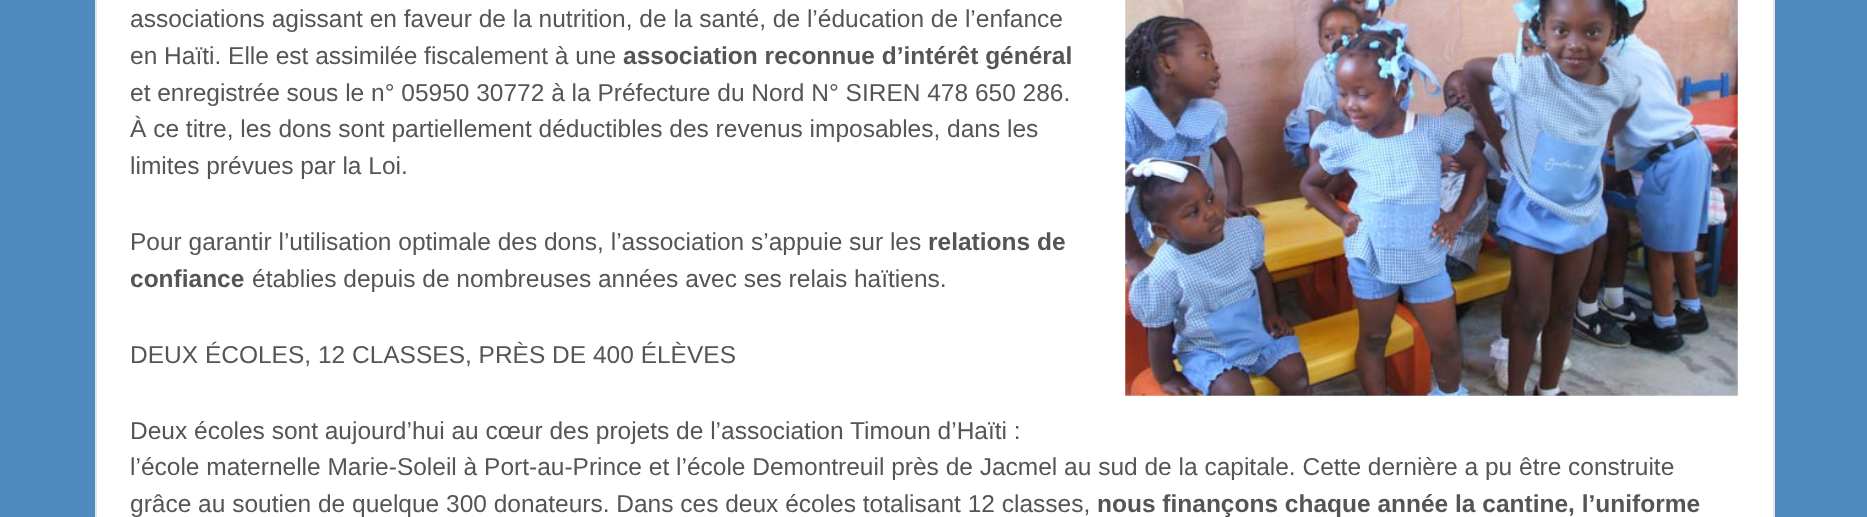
<svg xmlns="http://www.w3.org/2000/svg" width="1867" height="517">
<style>
.a{font:24.5px Liberation Sans;fill:#555}
.b{font:bold 24.5px Liberation Sans;fill:#555}
</style>
<rect width="100%" height="100%" fill="#508bbf"/>
<path fill="#fff" stroke="#e5e5e5" stroke-width="2" d="M96 -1h1678v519H96z"/>
<image href="1.png" x="1125" y="0" width="613" height="396"/>
<text class="a" x="130" y="27">associations agissant en faveur de la nutrition, de la santé, de l’éducation de l’enfance</text>
<text class="a" x="130" y="64">en Haïti. Elle est assimilée fiscalement à une</text>
<text class="b" x="623" y="64">association reconnue d’intérêt général</text>
<text class="a" x="130" y="101">et enregistrée sous le n° 05950 30772 à la Préfecture du Nord N° SIREN 478 650 286.</text>
<text class="a" x="130" y="137">À ce titre, les dons sont partiellement déductibles des revenus imposables, dans les</text>
<text class="a" x="130" y="174">limites prévues par la Loi.</text>
<text class="a" x="130" y="250">Pour garantir l’utilisation optimale des dons, l’association s’appuie sur les</text>
<text class="b" x="928" y="250">relations de</text>
<text class="b" x="130" y="287">confiance</text>
<text class="a" x="252" y="287">établies depuis de nombreuses années avec ses relais haïtiens.</text>
<text class="a" x="130" y="363">DEUX ÉCOLES, 12 CLASSES, PRÈS DE 400 ÉLÈVES</text>
<text class="a" x="130" y="439">Deux écoles sont aujourd’hui au cœur des projets de l’association Timoun d’Haïti :</text>
<text class="a" x="130" y="475">l’école maternelle Marie-Soleil à Port-au-Prince et l’école Demontreuil près de Jacmel au sud de la capitale. Cette dernière a pu être construite</text>
<text class="a" x="130" y="512">grâce au soutien de quelque 300 donateurs. Dans ces deux écoles totalisant 12 classes,</text>
<text class="b" x="1097" y="512">nous finançons chaque année la cantine, l’uniforme</text>
</svg>
